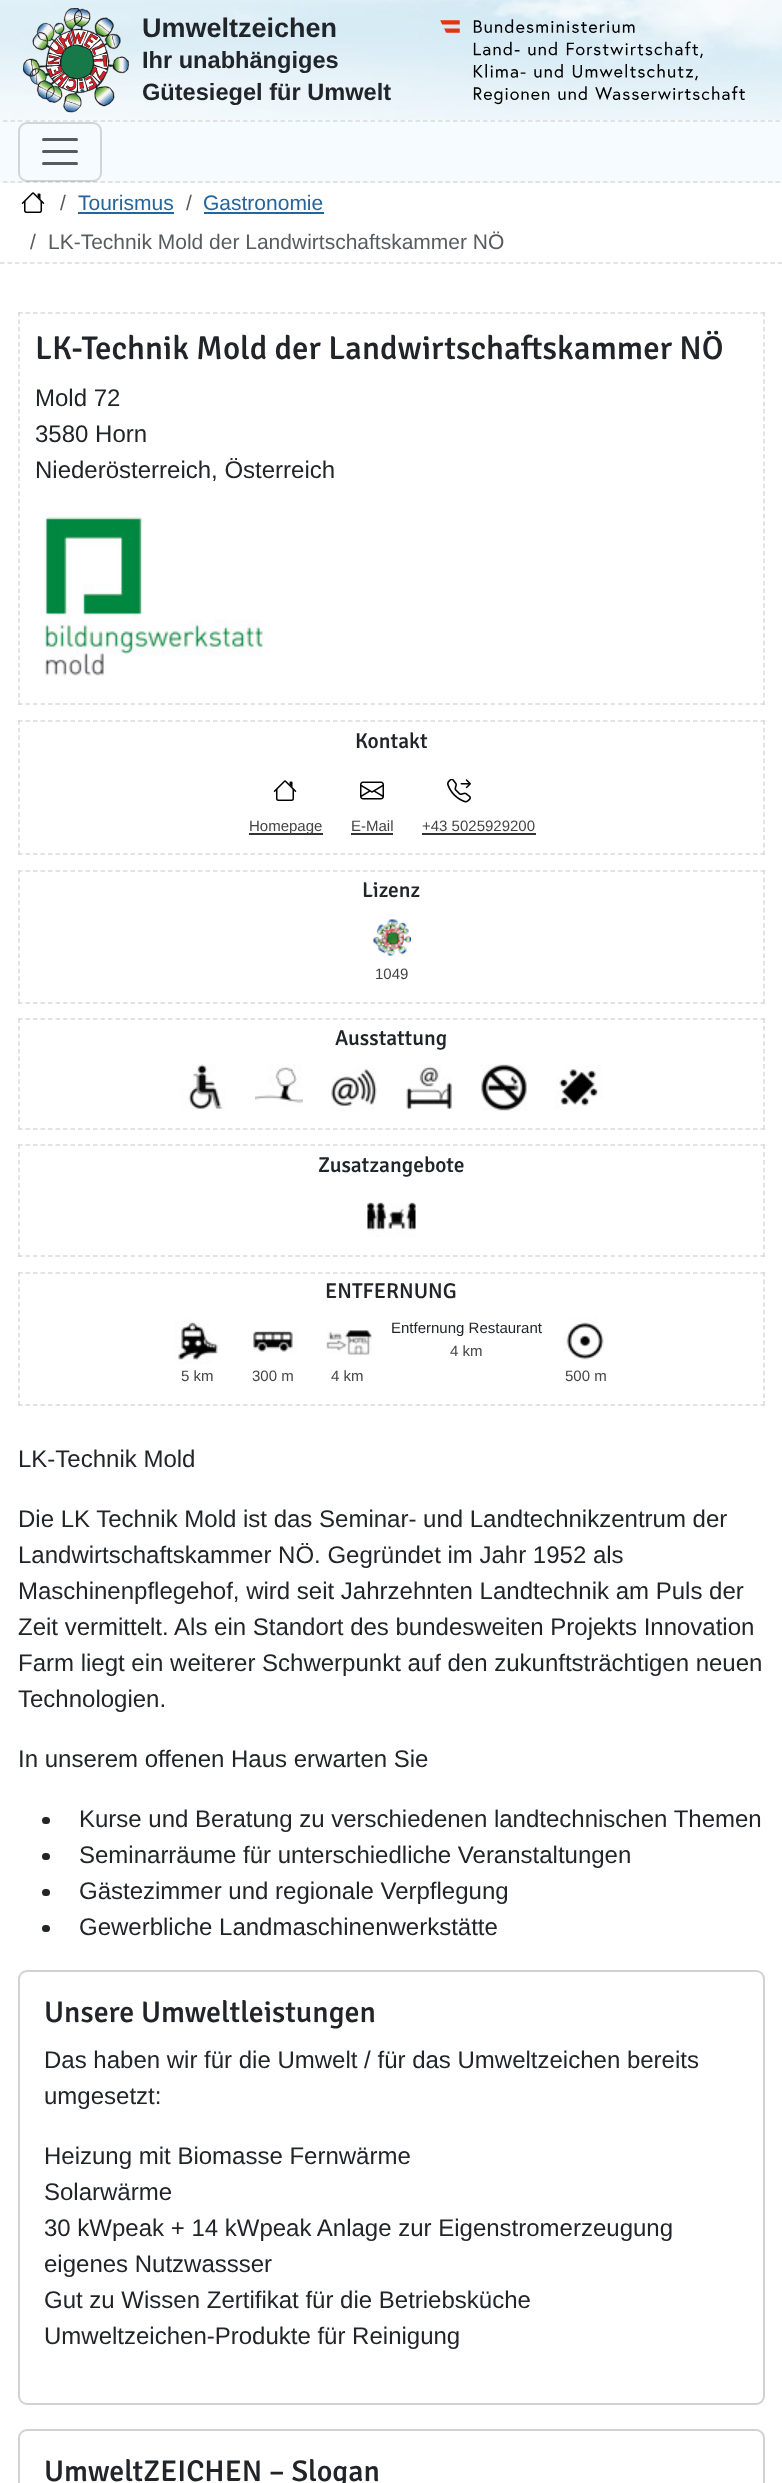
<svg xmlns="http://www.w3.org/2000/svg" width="782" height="2483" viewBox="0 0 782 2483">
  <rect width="100%" height="100%" fill="#fff"/>
  <image x="0" y="0" width="782" height="120" href="img/1.png"/>
  <image x="23" y="8" width="106" height="105" href="img/2.png"/>
  <image x="440" y="19" width="305" height="86" href="img/3.png"/>
  <path d="M0 120h782v63H0z" fill="#f5fbff"/>
  <path d="M-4.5 121H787.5" fill="none" stroke="#dadada" stroke-width="1.5" stroke-dasharray="4.5 3"/>
  <path d="M-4.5 182H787.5" fill="none" stroke="#dadada" stroke-width="1.5" stroke-dasharray="4.5 3"/>
  <rect x="19" y="123" width="82" height="58" rx="8" fill="none" stroke="#00000026" stroke-width="2"/>
  <path d="M43.5 139.5H76.5M43.5 151.5H76.5M43.5 163.5H76.5" fill="none" stroke="#565b5f" stroke-width="3" stroke-linecap="round"/>
  <path d="M0 263H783" fill="none" stroke="#dadada" stroke-width="1.5" stroke-dasharray="4.5 2.98"/>
  <image x="21" y="192" width="24" height="21" href="img/4.png"/>
  <path d="M78 212h96v2H78z" fill="#24659d"/>
  <path d="M204 212h120v2H204z" fill="#24659d"/>
  <path d="M18 313H765" fill="none" stroke="#dadada" stroke-width="1.5" stroke-dasharray="4.5 3"/>
  <path d="M764 312V705" fill="none" stroke="#dadada" stroke-width="1.5" stroke-dasharray="4.5 2.97"/>
  <path d="M18 704H765" fill="none" stroke="#dadada" stroke-width="1.5" stroke-dasharray="4.5 3"/>
  <path d="M19 312V705" fill="none" stroke="#dadada" stroke-width="1.5" stroke-dasharray="4.5 2.97"/>
  <image x="44" y="511" width="219" height="165" href="img/5.png"/>
  <path d="M18 721H765" fill="none" stroke="#dadada" stroke-width="1.5" stroke-dasharray="4.5 3"/>
  <path d="M764 720V855" fill="none" stroke="#dadada" stroke-width="1.5" stroke-dasharray="4.5 3.18"/>
  <path d="M18 854H765" fill="none" stroke="#dadada" stroke-width="1.5" stroke-dasharray="4.5 3"/>
  <path d="M19 720V855" fill="none" stroke="#dadada" stroke-width="1.5" stroke-dasharray="4.5 3.18"/>
  <image x="273" y="780" width="24" height="21" href="img/4.png"/>
  <path d="M249 833h74v2H249z" fill="#333"/>
  <image x="360" y="781" width="24" height="19" href="img/6.png"/>
  <path d="M351 833h42v2H351z" fill="#333"/>
  <image x="447" y="779" width="24" height="24" href="img/7.png"/>
  <path d="M422 833h114v2H422z" fill="#333"/>
  <path d="M18 871H765" fill="none" stroke="#dadada" stroke-width="1.5" stroke-dasharray="4.5 3"/>
  <path d="M764 870V1003.5" fill="none" stroke="#dadada" stroke-width="1.5" stroke-dasharray="4.5 3.09"/>
  <path d="M18 1003H765" fill="none" stroke="#dadada" stroke-width="1.5" stroke-dasharray="4.5 3"/>
  <path d="M19 870V1003.5" fill="none" stroke="#dadada" stroke-width="1.5" stroke-dasharray="4.5 3.09"/>
  <image x="373" y="919" width="38" height="37" href="img/8.png"/>
  <path d="M18 1019H765" fill="none" stroke="#dadada" stroke-width="1.5" stroke-dasharray="4.5 3"/>
  <path d="M764 1018.5V1129.5" fill="none" stroke="#dadada" stroke-width="1.5" stroke-dasharray="4.5 3.1"/>
  <path d="M18 1129H765" fill="none" stroke="#dadada" stroke-width="1.5" stroke-dasharray="4.5 3"/>
  <path d="M19 1018.5V1129.5" fill="none" stroke="#dadada" stroke-width="1.5" stroke-dasharray="4.5 3.1"/>
  <image x="180" y="1064" width="46" height="45" href="img/9.png"/>
  <image x="255" y="1064" width="48" height="43" href="img/10.png"/>
  <image x="331" y="1067" width="46" height="44" href="img/11.png"/>
  <image x="406" y="1064" width="47" height="46" href="img/12.png"/>
  <image x="480" y="1064" width="47" height="47" href="img/13.png"/>
  <image x="555" y="1065" width="48" height="45" href="img/14.png"/>
  <path d="M18 1145H765" fill="none" stroke="#dadada" stroke-width="1.5" stroke-dasharray="4.5 3"/>
  <path d="M764 1144.5V1257" fill="none" stroke="#dadada" stroke-width="1.5" stroke-dasharray="4.5 3.21"/>
  <path d="M18 1256H765" fill="none" stroke="#dadada" stroke-width="1.5" stroke-dasharray="4.5 3"/>
  <path d="M19 1144.5V1257" fill="none" stroke="#dadada" stroke-width="1.5" stroke-dasharray="4.5 3.21"/>
  <image x="367" y="1202" width="49" height="35" href="img/15.png"/>
  <path d="M18 1273H765" fill="none" stroke="#dadada" stroke-width="1.5" stroke-dasharray="4.5 3"/>
  <path d="M764 1272V1405.5" fill="none" stroke="#dadada" stroke-width="1.5" stroke-dasharray="4.5 3.09"/>
  <path d="M18 1405H765" fill="none" stroke="#dadada" stroke-width="1.5" stroke-dasharray="4.5 3"/>
  <path d="M19 1272V1405.5" fill="none" stroke="#dadada" stroke-width="1.5" stroke-dasharray="4.5 3.09"/>
  <image x="174" y="1319" width="46" height="46" href="img/16.png"/>
  <image x="252" y="1330" width="45" height="23" href="img/17.png"/>
  <image x="326" y="1330" width="46" height="27" href="img/18.png"/>
  <image x="563" y="1317" width="41" height="43" href="img/19.png"/>
  <rect x="42" y="1817" width="8" height="7" rx="3.5" fill="#212529"/>
  <rect x="42" y="1853" width="8" height="7" rx="3.5" fill="#212529"/>
  <rect x="42" y="1889" width="8" height="7" rx="3.5" fill="#212529"/>
  <rect x="42" y="1925" width="8" height="7" rx="3.5" fill="#212529"/>
  <rect x="19" y="1971" width="745" height="433" rx="8" fill="none" stroke="#d2d2d2" stroke-width="2"/>
  <rect x="19" y="2430" width="745" height="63" rx="8" fill="none" stroke="#d2d2d2" stroke-width="2"/>
  <text x="142" y="37" font-family="Liberation Sans" font-size="27" font-weight="bold" fill="#212529">Umweltzeichen</text>
  <g font-family="Liberation Sans" font-size="23.6" font-weight="bold" fill="#212529">
    <text x="142" y="68">Ihr unabhängiges</text>
    <text x="142" y="100">Gütesiegel für Umwelt</text>
  </g>
  <text x="60" y="210" font-family="Liberation Sans" font-size="21" fill="#595c5f">/</text>
  <text x="78" y="210" font-family="Liberation Sans" font-size="21" fill="#24659d">Tourismus</text>
  <text x="186" y="210" font-family="Liberation Sans" font-size="21" fill="#595c5f">/</text>
  <text x="203" y="210" font-family="Liberation Sans" font-size="21" fill="#24659d">Gastronomie</text>
  <g font-family="Liberation Sans" font-size="21" fill="#595c5f">
    <text x="30" y="249">/</text>
    <text x="48" y="249">LK-Technik Mold der Landwirtschaftskammer NÖ</text>
  </g>
  <text x="35" y="359" font-family="Signika" font-size="33" font-weight="500" fill="#212529">LK-Technik Mold der Landwirtschaftskammer NÖ</text>
  <g font-family="Liberation Sans" font-size="24" fill="#212529">
    <text x="35" y="406">Mold 72</text>
    <text x="35" y="442">3580 Horn</text>
    <text x="35" y="478">Niederösterreich, Österreich</text>
  </g>
  <text x="355" y="748" font-family="Signika" font-size="21.5" font-weight="500" fill="#212529">Kontakt</text>
  <g font-family="Liberation Sans" font-size="15" fill="#444">
    <text x="249" y="831">Homepage</text>
    <text x="351" y="831">E-Mail</text>
    <text x="422" y="831">+43 5025929200</text>
  </g>
  <text x="362" y="897" font-family="Signika" font-size="21.5" font-weight="500" fill="#212529">Lizenz</text>
  <text x="375" y="979" font-family="Liberation Sans" font-size="15" fill="#444">1049</text>
  <g font-family="Signika" font-size="21.5" font-weight="500" fill="#212529">
    <text x="335" y="1045">Ausstattung</text>
    <text x="318" y="1172">Zusatzangebote</text>
    <text x="325" y="1298">ENTFERNUNG</text>
  </g>
  <text x="391" y="1333" font-family="Liberation Sans" font-size="15" fill="#212529">Entfernung Restaurant</text>
  <g font-family="Liberation Sans" font-size="15" fill="#444">
    <text x="450" y="1356">4 km</text>
    <text x="181" y="1381">5 km</text>
    <text x="252" y="1381">300 m</text>
    <text x="331" y="1381">4 km</text>
    <text x="565" y="1381">500 m</text>
  </g>
  <g font-family="Liberation Sans" font-size="24" fill="#212529">
    <text x="18" y="1467">LK-Technik Mold</text>
    <text x="18" y="1527">Die LK Technik Mold ist das Seminar- und Landtechnikzentrum der</text>
    <text x="18" y="1563">Landwirtschaftskammer NÖ. Gegründet im Jahr 1952 als</text>
    <text x="18" y="1599">Maschinenpflegehof, wird seit Jahrzehnten Landtechnik am Puls der</text>
    <text x="18" y="1635">Zeit vermittelt. Als ein Standort des bundesweiten Projekts Innovation</text>
    <text x="18" y="1671">Farm liegt ein weiterer Schwerpunkt auf den zukunftsträchtigen neuen</text>
    <text x="18" y="1707">Technologien.</text>
    <text x="18" y="1767">In unserem offenen Haus erwarten Sie</text>
    <text x="79" y="1827">Kurse und Beratung zu verschiedenen landtechnischen Themen</text>
    <text x="79" y="1863">Seminarräume für unterschiedliche Veranstaltungen</text>
    <text x="79" y="1899">Gästezimmer und regionale Verpflegung</text>
    <text x="79" y="1935">Gewerbliche Landmaschinenwerkstätte</text>
  </g>
  <text x="44" y="2022" font-family="Signika" font-size="30" font-weight="500" fill="#212529">Unsere Umweltleistungen</text>
  <g font-family="Liberation Sans" font-size="24" fill="#212529">
    <text x="44" y="2068">Das haben wir für die Umwelt / für das Umweltzeichen bereits</text>
    <text x="44" y="2104">umgesetzt:</text>
    <text x="44" y="2164">Heizung mit Biomasse Fernwärme</text>
    <text x="44" y="2200">Solarwärme</text>
    <text x="44" y="2236">30 kWpeak + 14 kWpeak Anlage zur Eigenstromerzeugung</text>
    <text x="44" y="2272">eigenes Nutzwassser</text>
    <text x="44" y="2308">Gut zu Wissen Zertifikat für die Betriebsküche</text>
    <text x="44" y="2344">Umweltzeichen-Produkte für Reinigung</text>
  </g>
  <text x="44" y="2481" font-family="Signika" font-size="30" font-weight="500" fill="#212529">UmweltZEICHEN – Slogan</text>
</svg>
